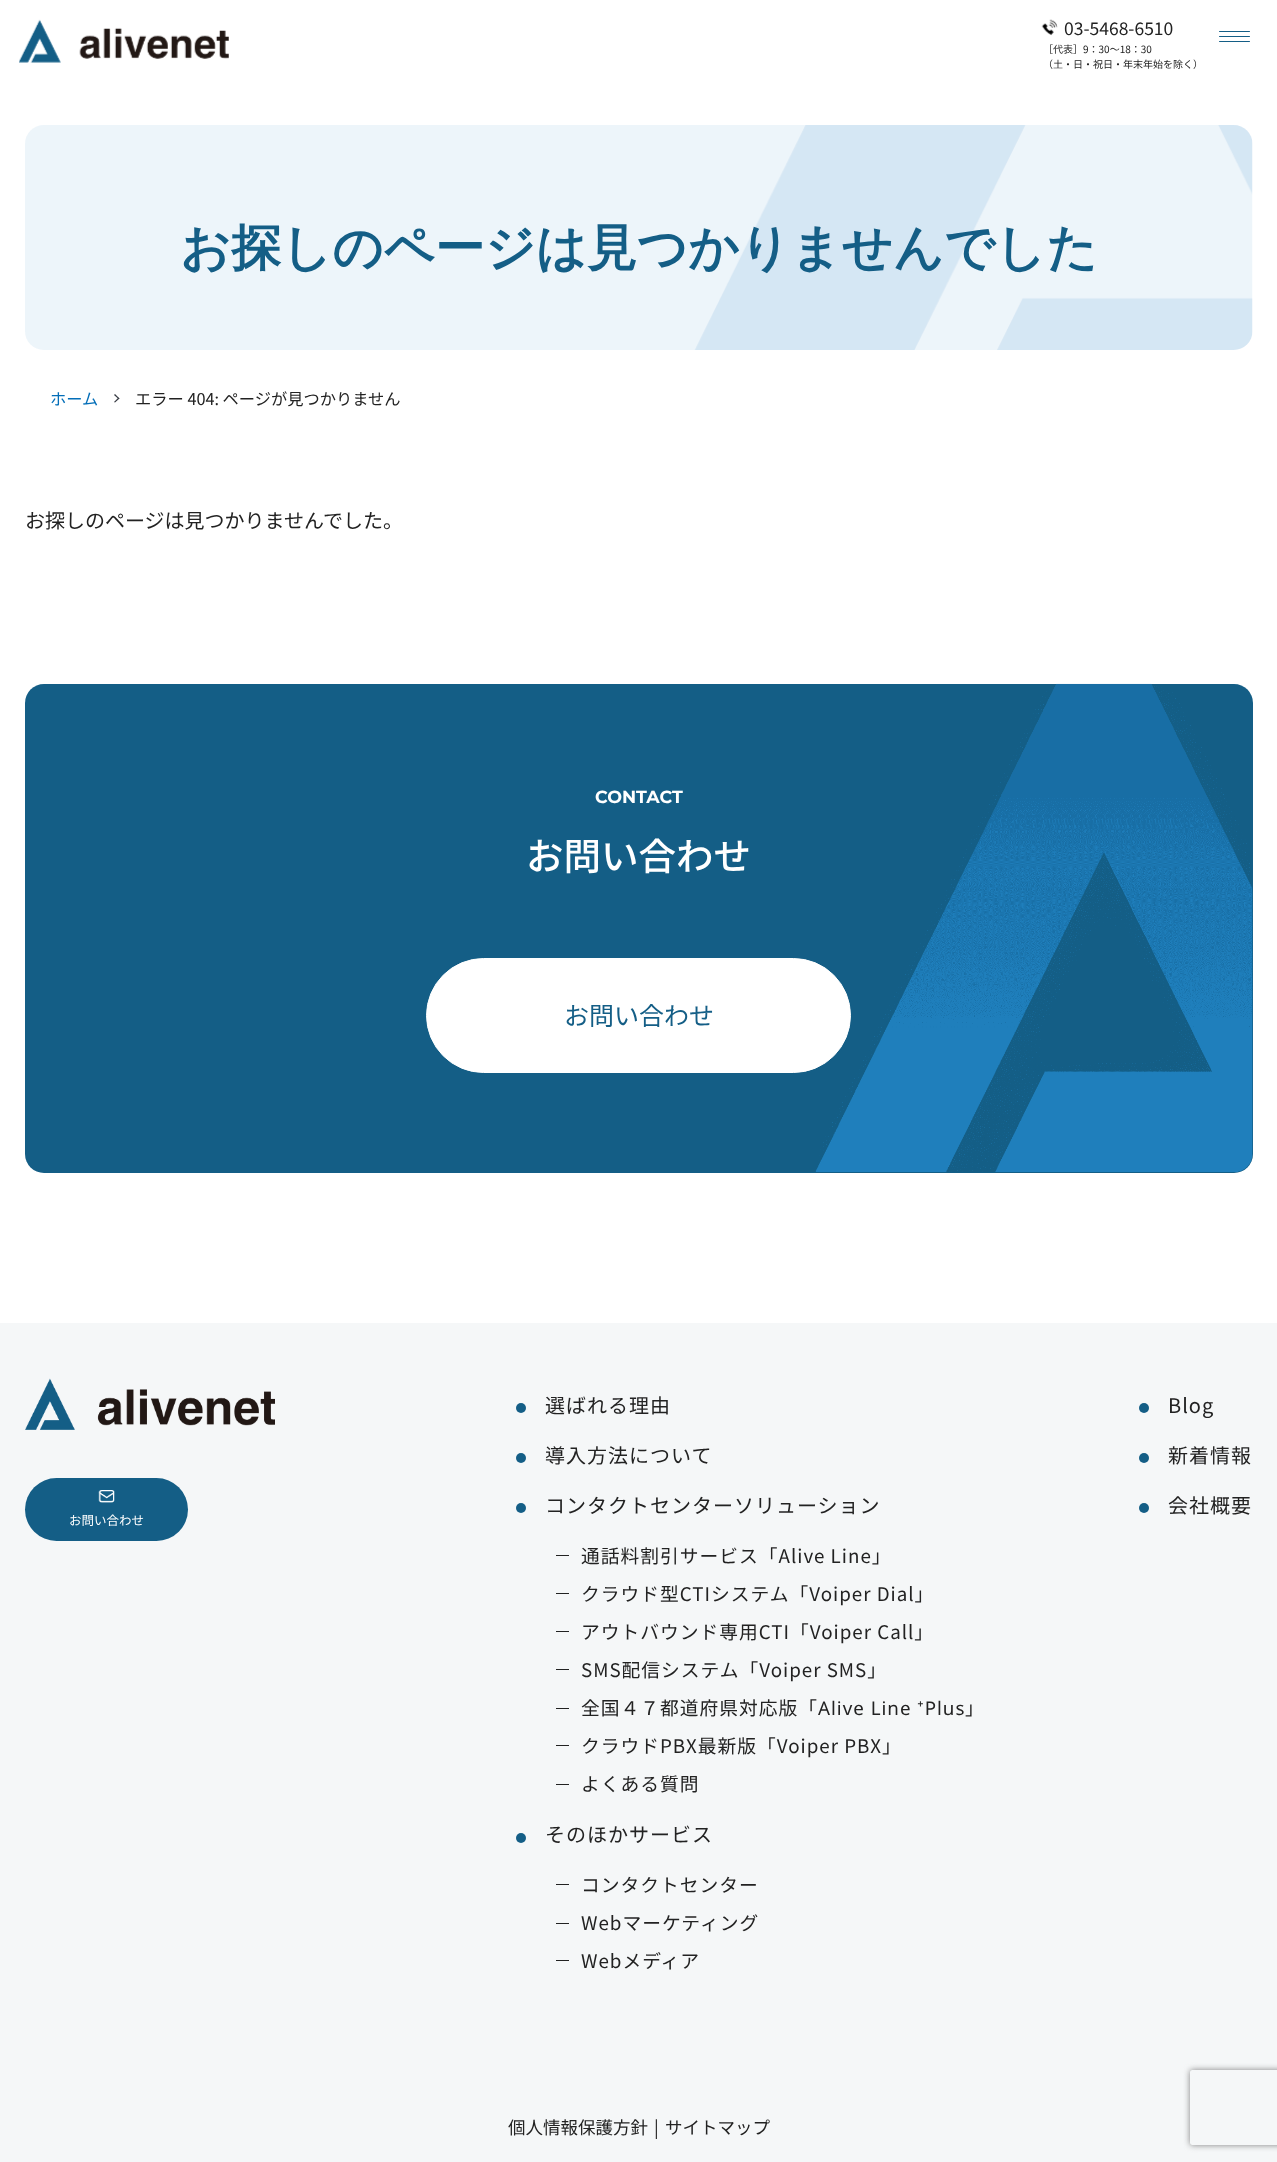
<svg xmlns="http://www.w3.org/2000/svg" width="1277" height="2162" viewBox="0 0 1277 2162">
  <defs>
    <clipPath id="clip1"><path d="M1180 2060H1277V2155H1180ZM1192.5 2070H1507.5C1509 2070 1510 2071 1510 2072.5V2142.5C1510 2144 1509 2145 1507.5 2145H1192.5C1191 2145 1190 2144 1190 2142.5V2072.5C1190 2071 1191 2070 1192.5 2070Z" clip-rule="evenodd"/></clipPath>
  </defs>
  <rect width="100%" height="100%" fill="#fff"/>
  <image x="19" y="19" width="210" height="44" href="img/1.png"/>
  <image x="1041" y="19" width="17" height="17" href="img/2.png"/>
  <rect x="1219" y="36" width="31" height="1" rx="0.5" fill="#145e86"/>
  <rect x="1219" y="31" width="31" height="1" rx="0.5" fill="#145e86"/>
  <rect x="1219" y="41" width="31" height="1" rx="0.5" fill="#145e86"/>
  <image x="25" y="125" width="1228" height="225" href="img/3.png"/>
  <path d="M115 394L119.5 398.5L118.5 399L114 395Z" fill="#353941"/>
  <path d="M118.5 397.5L119.5 398.5L115 402.5L114 402Z" fill="#353941"/>
  <rect x="25" y="684" width="1228" height="489" rx="19" fill="#145e86"/>
  <image x="815" y="683" width="438" height="489" href="img/4.png"/>
  <rect x="426.5" y="958.5" width="424" height="114" rx="57" fill="#fff" stroke="#fff"/>
  <path d="M0 1323h1277v839H0z" fill="#f5f7f8"/>
  <image x="25" y="1378" width="250" height="52" href="img/5.png"/>
  <rect x="25" y="1478" width="163" height="63" rx="31.5" fill="#145e86"/>
  <image x="98" y="1490" width="17" height="13" href="img/6.png"/>
  <circle cx="521" cy="1408" r="5" fill="#145e86"/>
  <circle cx="521" cy="1458" r="5" fill="#145e86"/>
  <circle cx="521" cy="1508" r="5" fill="#145e86"/>
  <path d="M556 1555h13v1H556z" fill="#222"/>
  <path d="M556 1593h13v1H556z" fill="#222"/>
  <path d="M556 1631h13v1H556z" fill="#222"/>
  <path d="M556 1669h13v1H556z" fill="#222"/>
  <path d="M556 1708h13v1H556z" fill="#222"/>
  <path d="M556 1745h13v1H556z" fill="#222"/>
  <path d="M556 1784h13v1H556z" fill="#222"/>
  <circle cx="521" cy="1838" r="5" fill="#145e86"/>
  <path d="M556 1884h13v1H556z" fill="#222"/>
  <path d="M556 1923h13v1H556z" fill="#222"/>
  <path d="M556 1960h13v1H556z" fill="#222"/>
  <circle cx="1144" cy="1408" r="5" fill="#145e86"/>
  <circle cx="1144" cy="1458" r="5" fill="#145e86"/>
  <circle cx="1144" cy="1508" r="5" fill="#145e86"/>
  <g clip-path="url(#clip1)">
    <rect x="1190" y="2070" width="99" height="75" rx="2.5" fill="#808080" filter="blur(3px)"/>
  </g>
  <text x="1064" y="35" font-family="Noto Sans JP" font-size="17.5" fill="#222">03-5468-6510</text>
  <g font-family="Noto Sans JP" font-size="10" fill="#222">
    <text x="1043" y="53">［代表］9：30～18：30</text>
    <text x="1043" y="68">（土・日・祝日・年末年始を除く）</text>
  </g>
  <text x="180" y="265" font-family="WenQuanYi Zen Hei" font-size="50" font-weight="bold" fill="#145e86">お探しのページは見つかりませんでした</text>
  <text x="50" y="405" font-family="Noto Sans JP" font-size="16.25" fill="#036eb8">ホーム</text>
  <text x="135" y="405" font-family="Noto Sans JP" font-size="16.25" fill="#222">エラー 404: ページが見つかりません</text>
  <text x="25" y="528" font-family="Noto Sans JP" font-size="20" fill="#222">お探しのページは見つかりませんでした。</text>
  <text x="595" y="803" font-family="Montserrat" font-size="17.5" font-weight="bold" fill="#fff">CONTACT</text>
  <text x="526" y="870" font-family="Noto Sans JP" font-size="37.5" font-weight="500" fill="#fff">お問い合わせ</text>
  <text x="564" y="1025" font-family="Noto Sans JP" font-size="25" fill="#145e86">お問い合わせ</text>
  <text x="69" y="1525" font-family="Noto Sans JP" font-size="12.5" fill="#fff">お問い合わせ</text>
  <g font-family="Noto Sans JP" font-size="20" letter-spacing="1" fill="#222">
    <text x="545" y="1413">選ばれる理由</text>
    <text x="545" y="1463">導入方法について</text>
    <text x="545" y="1513">コンタクトセンターソリューション</text>
  </g>
  <g font-family="Noto Sans JP" font-size="18.75" letter-spacing="1" fill="#222">
    <text x="581" y="1563">通話料割引サービス「Alive Line」</text>
    <text x="581" y="1601">クラウド型CTIシステム「Voiper Dial」</text>
    <text x="581" y="1639">アウトバウンド専用CTI「Voiper Call」</text>
    <text x="581" y="1677">SMS配信システム「Voiper SMS」</text>
    <text x="581" y="1715">全国４７都道府県対応版「</text>
  </g>
  <text x="818" y="1715" font-family="Noto Sans" font-size="18.75" letter-spacing="1" fill="#222">Alive Line ⁺Plus</text>
  <g font-family="Noto Sans JP" font-size="18.75" letter-spacing="1" fill="#222">
    <text x="965" y="1715">」</text>
    <text x="581" y="1753">クラウドPBX最新版「Voiper PBX」</text>
    <text x="581" y="1791">よくある質問</text>
  </g>
  <text x="545" y="1842" font-family="Noto Sans JP" font-size="20" letter-spacing="1" fill="#222">そのほかサービス</text>
  <g font-family="Noto Sans JP" font-size="18.75" letter-spacing="1" fill="#222">
    <text x="581" y="1892">コンタクトセンター</text>
    <text x="581" y="1930">Webマーケティング</text>
    <text x="581" y="1968">Webメディア</text>
  </g>
  <g font-family="Noto Sans JP" font-size="20" letter-spacing="1" fill="#222">
    <text x="1168" y="1413">Blog</text>
    <text x="1168" y="1463">新着情報</text>
    <text x="1168" y="1513">会社概要</text>
  </g>
  <g font-family="Noto Sans JP" font-size="17.5" fill="#222">
    <text x="508" y="2134">個人情報保護方針</text>
    <text x="654" y="2134">|</text>
    <text x="665" y="2134">サイトマップ</text>
  </g>
</svg>
